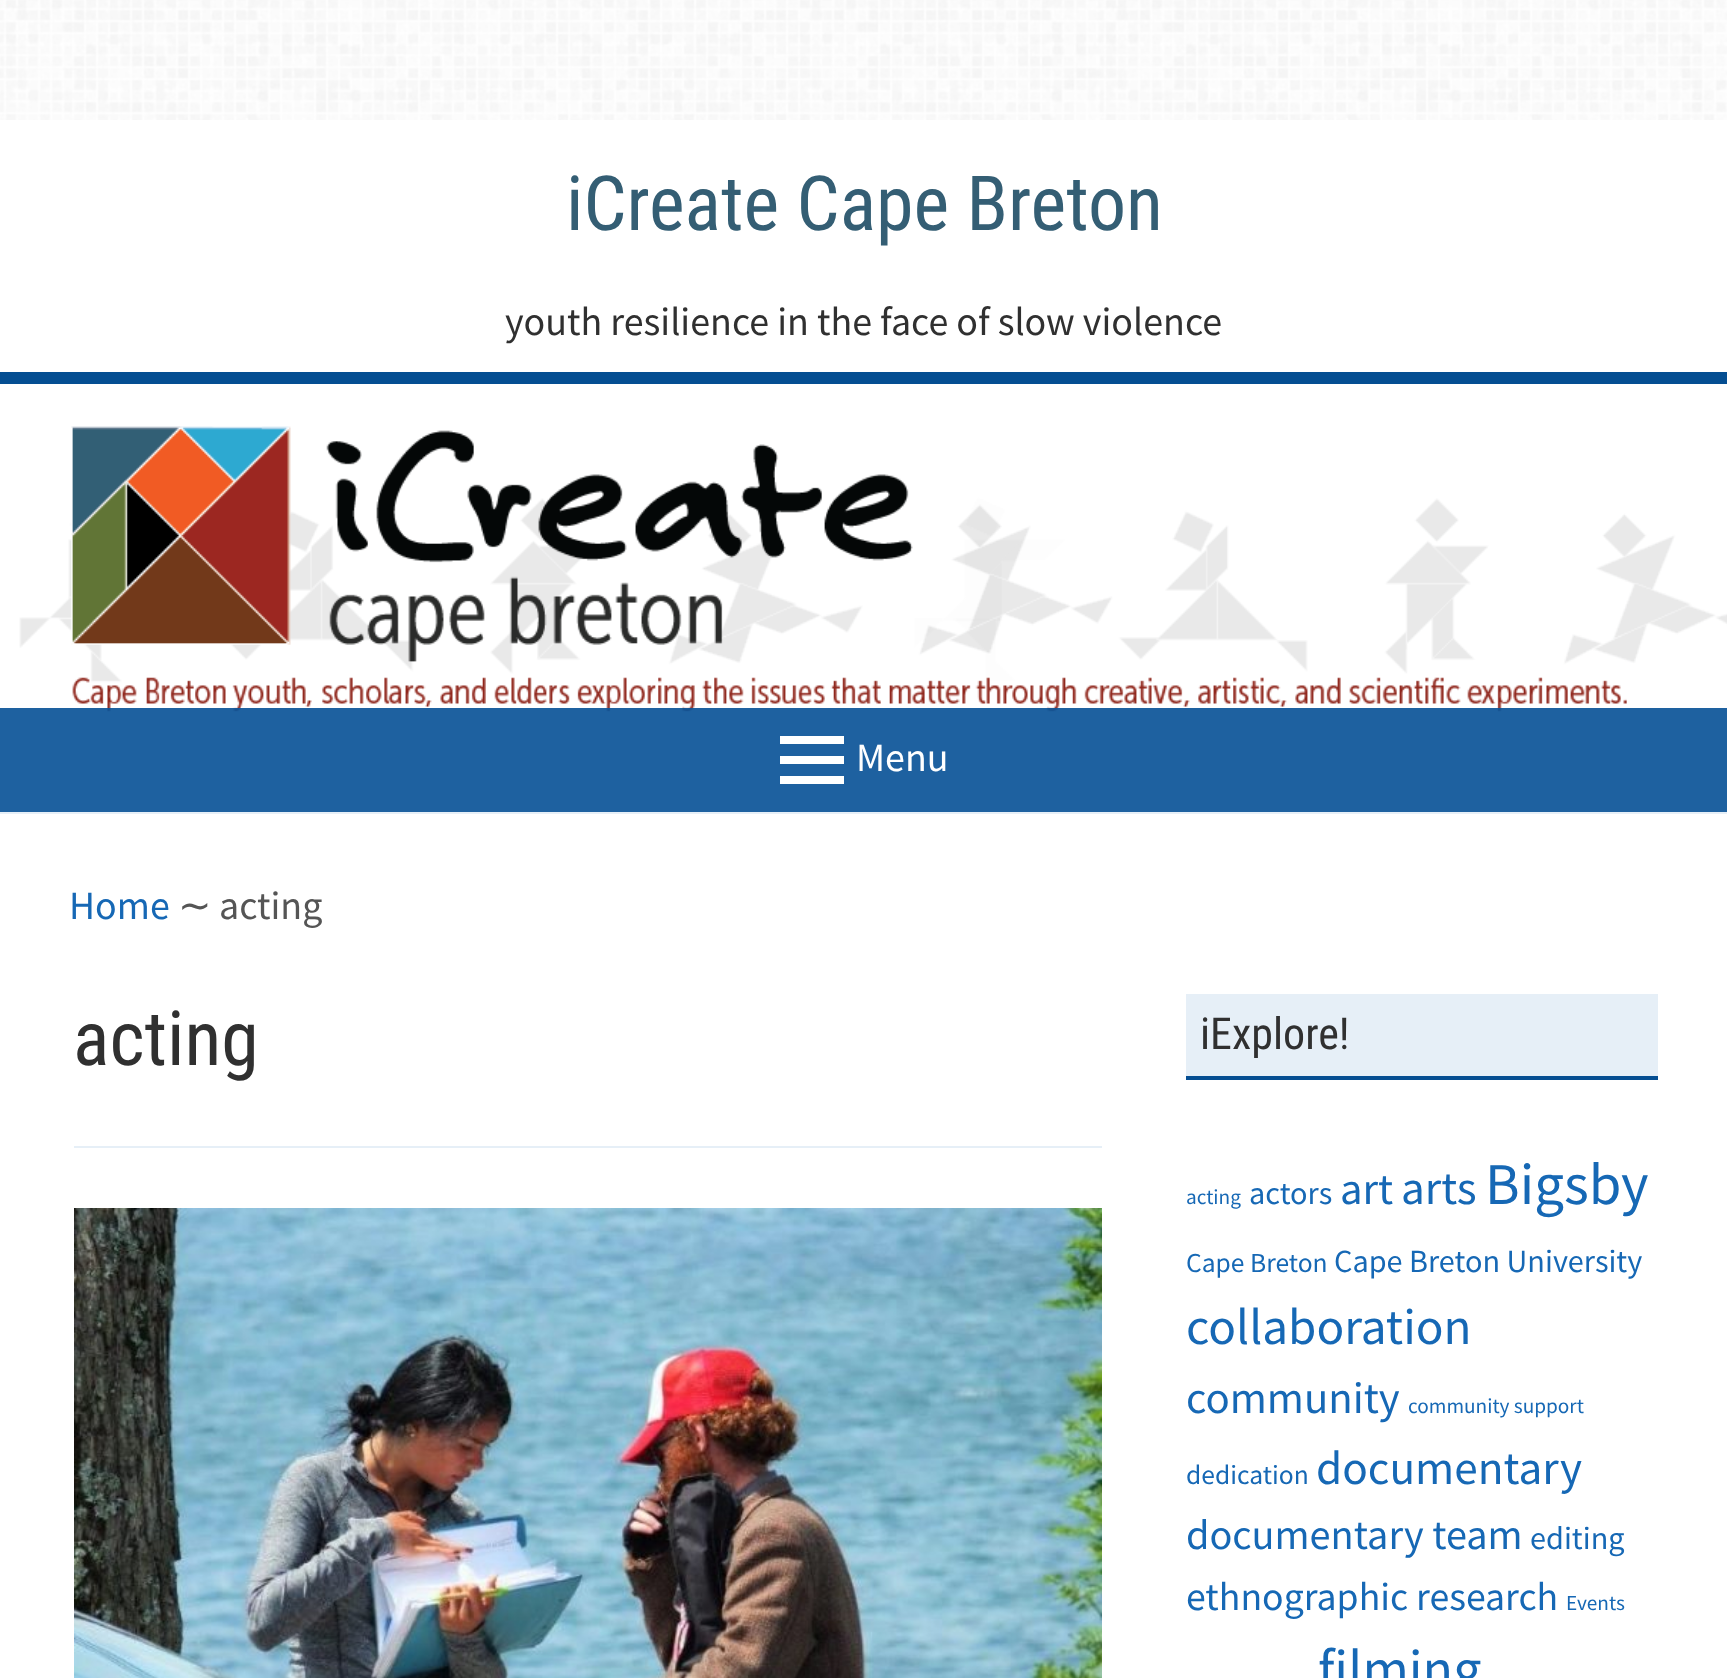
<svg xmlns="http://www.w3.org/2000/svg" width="1727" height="1678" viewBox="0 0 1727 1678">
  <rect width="100%" height="100%" fill="#fff"/>
  <image x="0" y="0" width="1727" height="812" href="img/1.png"/>
  <path d="M0 120h1727v252H0z" fill="#fff"/>
  <path d="M0 384h1727v324H0z" fill="#fff"/>
  <path d="M0 372h1727v12H0z" fill="#054e92"/>
  <image x="19" y="426" width="1708" height="286" href="img/2.png"/>
  <path d="M0 708h1727v104H0z" fill="#0b5498eb"/>
  <path d="M0 812h1727v2H0z" fill="#e6eff7"/>
  <path d="M780 784V776H844V784ZM780 736H844V744H780ZM780 764V756H844V764Z" fill="#fff"/>
  <path d="M74 1146h1028v2H74z" fill="#e6eff7"/>
  <image x="74" y="1208" width="1028" height="470" href="img/3.png"/>
  <path d="M1186 994h472v82H1186z" fill="#e6eff7"/>
  <path d="M1186 1076h472v4H1186z" fill="#054e92"/>
  <text x="566" y="230" font-family="Roboto Condensed" font-size="76" fill="#345e74">iCreate Cape Breton</text>
  <text x="505" y="335" font-family="Source Sans Pro" font-size="40" fill="#303030">youth resilience in the face of slow violence</text>
  <text x="856" y="771" font-family="Source Sans Pro" font-size="40" fill="#fff">Menu</text>
  <text x="69" y="919" font-family="Source Sans Pro" font-size="40" fill="#1668b5">Home</text>
  <text x="178" y="919" font-family="DejaVu Sans" font-size="40" fill="#555">∼</text>
  <text x="219" y="919" font-family="Source Sans Pro" font-size="40" fill="#555">acting</text>
  <text x="73" y="1065" font-family="Roboto Condensed" font-size="76" fill="#303030">acting</text>
  <text x="1200" y="1049" font-family="Roboto Condensed" font-size="44" fill="#303030">iExplore!</text>
  <text x="1186" y="1204" font-family="Source Sans Pro" font-size="21.25" fill="#1668b5">acting</text>
  <text x="1249" y="1204" font-family="Source Sans Pro" font-size="32.25" fill="#1668b5">actors</text>
  <text x="1340" y="1204" font-family="Source Sans Pro" font-size="44.75" fill="#1668b5">art</text>
  <text x="1401" y="1204" font-family="Source Sans Pro" font-size="47.25" fill="#1668b5">arts</text>
  <text x="1485" y="1204" font-family="Source Sans Pro" font-size="59" fill="#1668b5">Bigsby</text>
  <text x="1186" y="1272" font-family="Source Sans Pro" font-size="27.5" fill="#1668b5">Cape Breton</text>
  <text x="1334" y="1272" font-family="Source Sans Pro" font-size="32.25" fill="#1668b5">Cape Breton University</text>
  <text x="1186" y="1344" font-family="Source Sans Pro" font-size="51.25" fill="#1668b5">collaboration</text>
  <text x="1186" y="1413" font-family="Source Sans Pro" font-size="44.75" fill="#1668b5">community</text>
  <text x="1408" y="1413" font-family="Source Sans Pro" font-size="21.25" fill="#1668b5">community support</text>
  <text x="1186" y="1484" font-family="Source Sans Pro" font-size="27.5" fill="#1668b5">dedication</text>
  <text x="1316" y="1484" font-family="Source Sans Pro" font-size="47.25" fill="#1668b5">documentary</text>
  <text x="1186" y="1549" font-family="Source Sans Pro" font-size="42.25" fill="#1668b5">documentary team</text>
  <text x="1530" y="1549" font-family="Source Sans Pro" font-size="32.25" fill="#1668b5">editing</text>
  <text x="1186" y="1610" font-family="Source Sans Pro" font-size="39.75" fill="#1668b5">ethnographic research</text>
  <text x="1566" y="1610" font-family="Source Sans Pro" font-size="21.25" fill="#1668b5">Events</text>
  <text x="1318" y="1688" font-family="Source Sans Pro" font-size="56" fill="#1668b5">filming</text>
</svg>
